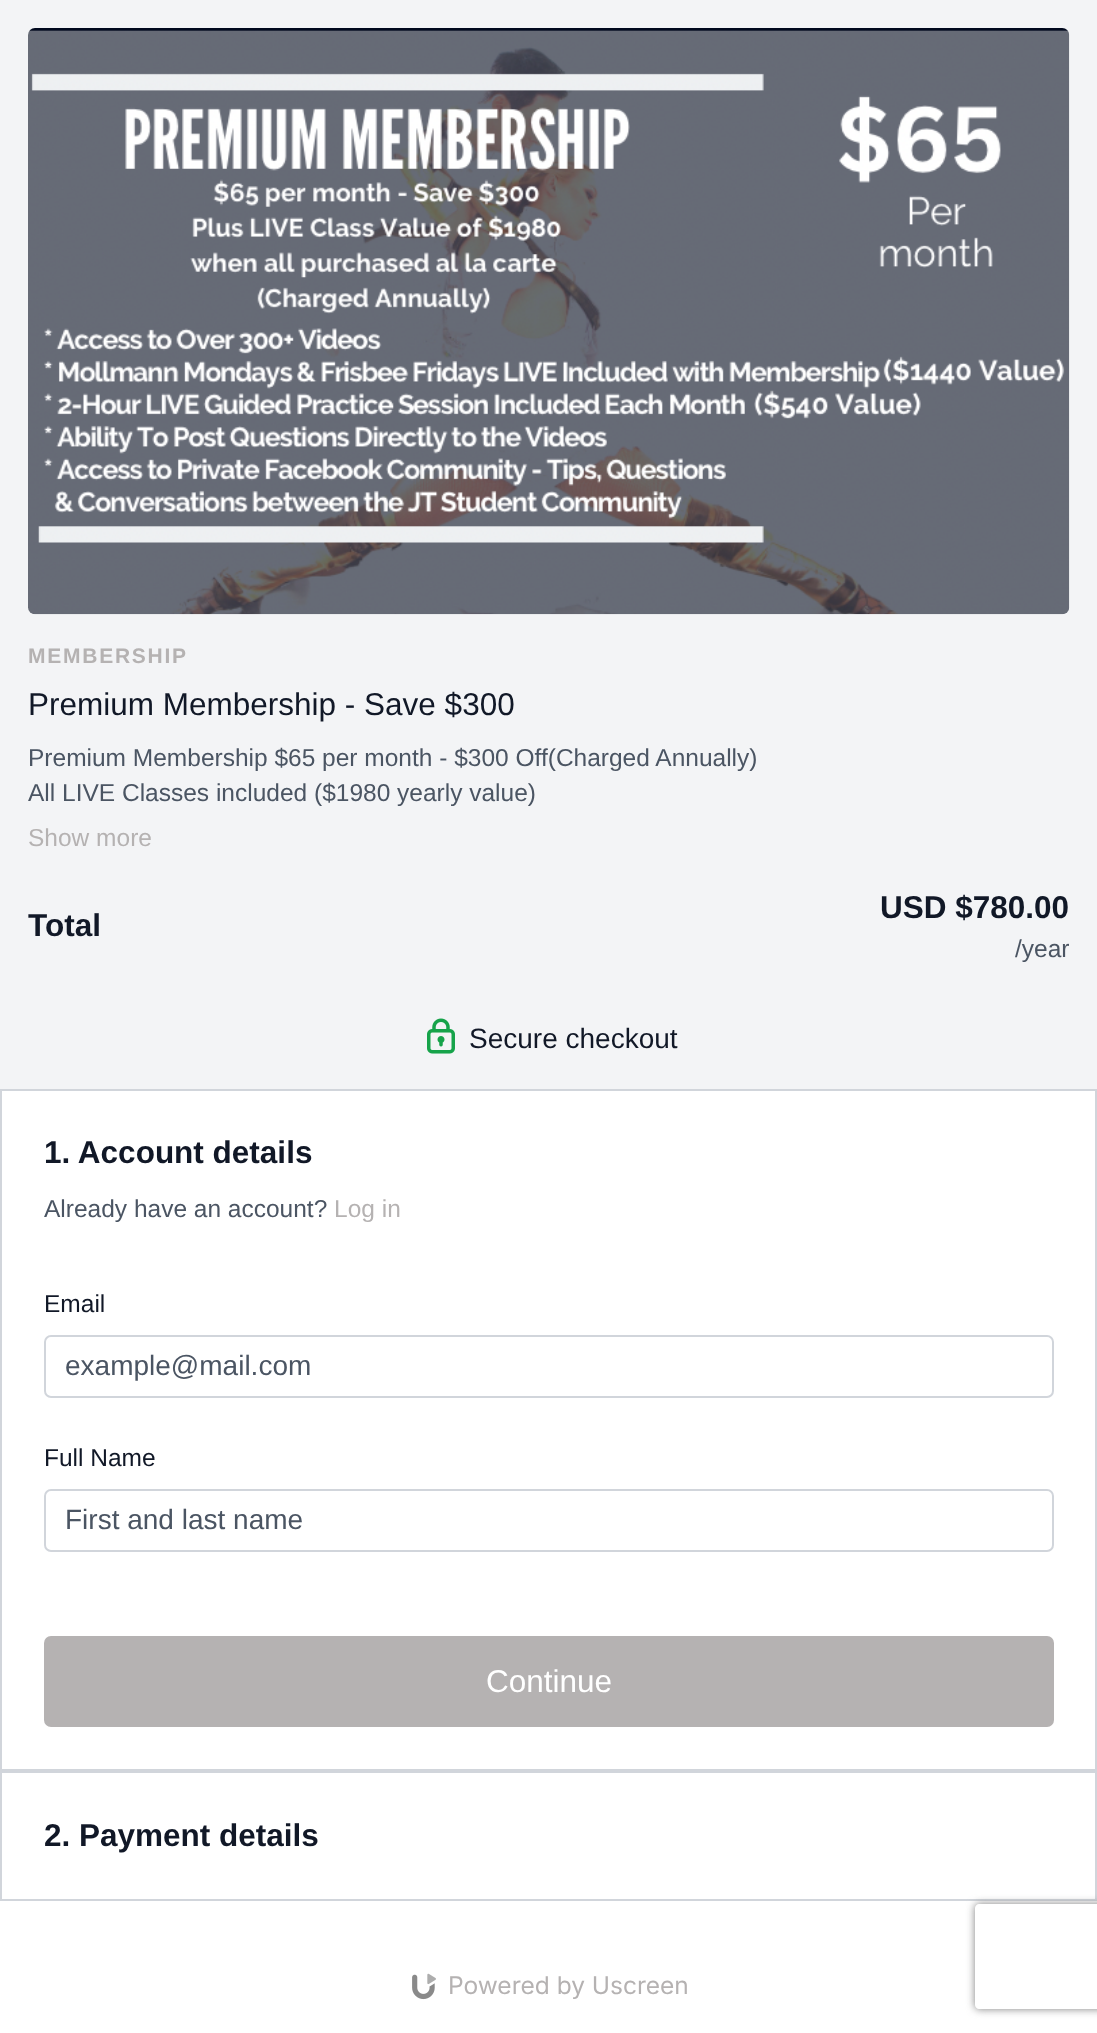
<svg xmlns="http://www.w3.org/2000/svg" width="1097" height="2033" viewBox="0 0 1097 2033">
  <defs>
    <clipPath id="clip1"><path d="M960 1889H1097V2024H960ZM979 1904H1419C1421 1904 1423 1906 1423 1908V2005C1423 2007 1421 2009 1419 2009H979C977 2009 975 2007 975 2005V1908C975 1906 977 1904 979 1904Z" clip-rule="evenodd"/></clipPath>
  </defs>
  <rect width="100%" height="100%" fill="#fff"/>
  <path d="M0 0h1097v1089H0z" fill="#f3f4f6"/>
  <image x="28" y="28" width="1042" height="587" href="img/1.png"/>
  <image x="427" y="1018" width="28" height="36" href="img/2.png"/>
  <path d="M1 1090h1095v680H1z" fill="none" stroke="#d1d5db" stroke-width="2"/>
  <rect x="45" y="1336" width="1008" height="61" rx="6" fill="none" stroke="#d1d5db" stroke-width="2"/>
  <rect x="45" y="1490" width="1008" height="61" rx="6" fill="none" stroke="#d1d5db" stroke-width="2"/>
  <rect x="44" y="1636" width="1010" height="91" rx="7" fill="#b5b2b2"/>
  <path d="M1 1772h1095v128H1z" fill="none" stroke="#d1d5db" stroke-width="2"/>
  <image x="412" y="1973" width="24" height="27" href="img/3.png"/>
  <g clip-path="url(#clip1)">
    <rect x="975" y="1904" width="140" height="105" rx="4" fill="#808080" filter="blur(4.5px)"/>
  </g>
  <text x="28" y="663" font-family="Liberation Sans" font-size="21" font-weight="bold" letter-spacing="1.75" fill="#b5b2b2">MEMBERSHIP</text>
  <text x="28" y="715" font-family="Liberation Sans" font-size="31.5" fill="#111827">Premium Membership - Save $300</text>
  <g font-family="Liberation Sans" font-size="24.5" fill="#4b5563">
    <text x="28" y="766">Premium Membership $65 per month - $300 Off(Charged Annually)</text>
    <text x="28" y="801">All LIVE Classes included ($1980 yearly value)</text>
  </g>
  <text x="28" y="846" font-family="Liberation Sans" font-size="24.5" fill="#b5b2b2">Show more</text>
  <g font-family="Liberation Sans" font-size="31.5" font-weight="bold" fill="#111827">
    <text x="28" y="936">Total</text>
    <text x="880" y="918">USD $780.00</text>
  </g>
  <text x="1015" y="957" font-family="Liberation Sans" font-size="24.5" fill="#4b5563">/year</text>
  <text x="469" y="1048" font-family="Liberation Sans" font-size="28" fill="#111827">Secure checkout</text>
  <text x="44" y="1163" font-family="Liberation Sans" font-size="31.5" font-weight="bold" fill="#111827">1. Account details</text>
  <text x="44" y="1217" font-family="Liberation Sans" font-size="24.5" fill="#4b5563">Already have an account?</text>
  <text x="334" y="1217" font-family="Liberation Sans" font-size="24.5" fill="#b5b2b2">Log in</text>
  <text x="44" y="1312" font-family="Liberation Sans" font-size="24.5" fill="#111827">Email</text>
  <text x="65" y="1375" font-family="Liberation Sans" font-size="28" fill="#4b5563">example@mail.com</text>
  <text x="44" y="1466" font-family="Liberation Sans" font-size="24.5" fill="#111827">Full Name</text>
  <text x="65" y="1529" font-family="Liberation Sans" font-size="28" fill="#4b5563">First and last name</text>
  <text x="486" y="1692" font-family="Liberation Sans" font-size="31.5" fill="#fff">Continue</text>
  <text x="44" y="1846" font-family="Liberation Sans" font-size="31.5" font-weight="bold" fill="#111827">2. Payment details</text>
  <text x="448" y="1994" font-family="Inter" font-size="24.5" fill="#b5b2b2">Powered by Uscreen</text>
</svg>
